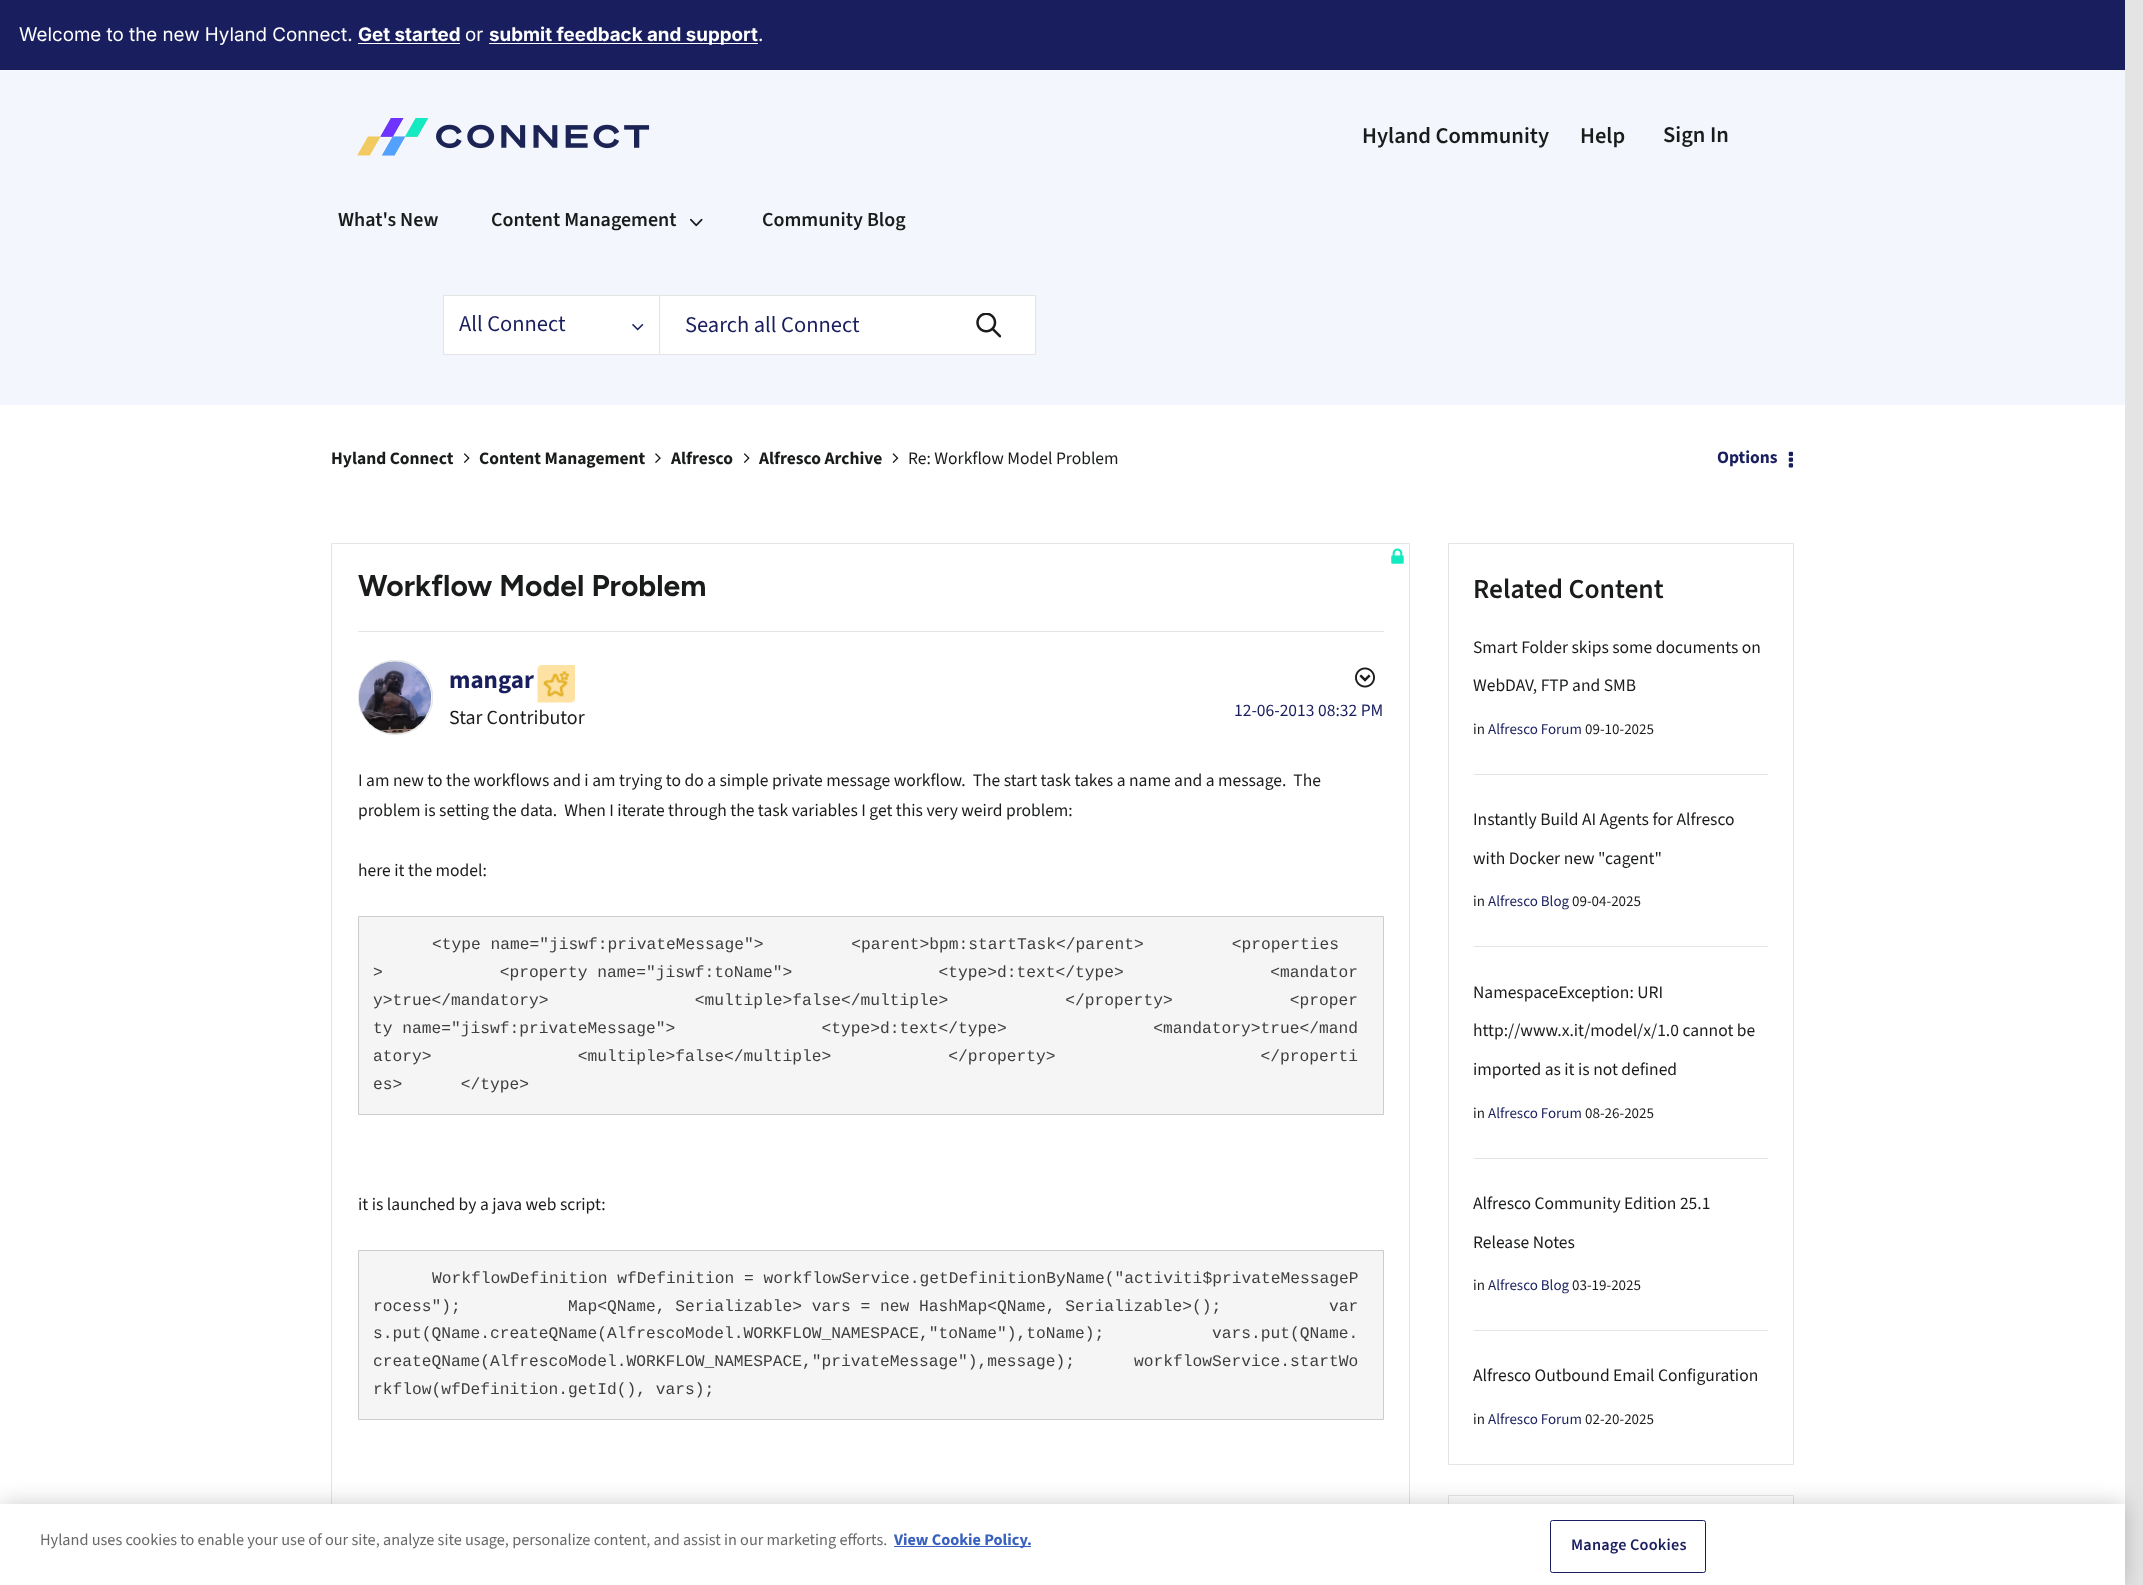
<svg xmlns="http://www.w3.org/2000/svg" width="2143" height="1585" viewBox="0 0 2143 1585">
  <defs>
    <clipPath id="clip1"><path d="M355 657H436V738H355ZM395.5 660C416 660 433 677 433 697.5C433 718 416 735 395.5 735C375 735 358 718 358 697.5C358 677 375 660 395.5 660Z" clip-rule="evenodd"/></clipPath>
  </defs>
  <rect width="100%" height="100%" fill="#e4e4e4"/>
  <path d="M0 405h2125v1099H0z" fill="#fff"/>
  <path d="M0 0h2125v70H0z" fill="#191f5e"/>
  <path d="M358 43h102v1H358z" fill="#fff"/>
  <path d="M489 43h269v1H489z" fill="#fff"/>
  <path d="M0 70h2125v335H0z" fill="#f4f6fe"/>
  <image x="357" y="118" width="293" height="38" href="img/1.png"/>
  <image x="690" y="218" width="13" height="9" href="img/2.png"/>
  <path d="M444 296h215v58H444z" fill="#fff"/>
  <path d="M443 295h216v1H443z" fill="#e4e4e4"/>
  <path d="M443 354h216v1H443z" fill="#e4e4e4"/>
  <path d="M443 295h1v60H443z" fill="#e4e4e4"/>
  <image x="632" y="323" width="12" height="8" href="img/3.png"/>
  <path d="M659.5 295.5h376v59H659.5z" fill="#fff" stroke="#e4e4e4"/>
  <image x="976" y="313" width="25" height="25" href="img/4.png"/>
  <image x="463" y="453" width="7" height="10" href="img/5.png"/>
  <image x="655" y="453" width="6" height="10" href="img/6.png"/>
  <image x="743" y="453" width="7" height="10" href="img/5.png"/>
  <image x="892" y="453" width="7" height="10" href="img/7.png"/>
  <image x="1788" y="451" width="6" height="17" href="img/8.png"/>
  <path d="M331.5 543.5h1078v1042H331.5z" fill="none" stroke="#e4e4e4"/>
  <image x="1391" y="548" width="13" height="16" href="img/9.png"/>
  <path d="M358 631h1026v1H358z" fill="#e4e4e4"/>
  <g clip-path="url(#clip1)">
    <rect x="358" y="660" width="75" height="75" rx="37.5" fill="#c4c4c4" filter="blur(0.5px)"/>
  </g>
  <circle cx="395.5" cy="697.5" r="37" fill="none" stroke="#e4e4e4"/>
  <image x="358" y="661" width="74" height="73" href="img/10.png"/>
  <image x="537" y="665" width="38" height="38" href="img/11.png"/>
  <image x="1355" y="667" width="20" height="21" href="img/12.png"/>
  <path d="M358.5 916.5h1025v198H358.5z" fill="#f5f5f5" stroke="#ccc"/>
  <path d="M358.5 1250.5h1025v169H358.5z" fill="#f5f5f5" stroke="#ccc"/>
  <path d="M1448.5 543.5h345v921H1448.5z" fill="none" stroke="#e4e4e4"/>
  <path d="M1474 774h294v1H1474z" fill="#e4e4e4"/>
  <path d="M1474 946h294v1H1474z" fill="#e4e4e4"/>
  <path d="M1474 1158h294v1H1474z" fill="#e4e4e4"/>
  <path d="M1474 1330h294v1H1474z" fill="#e4e4e4"/>
  <path d="M1448.5 1495.5h345v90H1448.5z" fill="none" stroke="#e4e4e4"/>
  <path d="M0 1504h2125v81H0z" fill="#00000033" filter="blur(11px)"/>
  <path d="M0 1504h2125v81H0z" fill="#fff"/>
  <path d="M894 1546h137v1H894z" fill="#3860be"/>
  <rect x="1550.5" y="1520.5" width="155" height="52" rx="2" fill="none" stroke="#191f5e"/>
  <text x="19" y="41" font-family="Inter" font-size="18.75" fill="#fff">Welcome to the new Hyland Connect.</text>
  <text x="358" y="41" font-family="Inter" font-size="18.75" font-weight="bold" fill="#fff">Get started</text>
  <text x="465" y="41" font-family="Inter" font-size="18.75" fill="#fff">or</text>
  <text x="489" y="41" font-family="Inter" font-size="18.75" font-weight="bold" fill="#fff">submit feedback and support</text>
  <text x="758" y="41" font-family="Inter" font-size="18.75" fill="#fff">.</text>
  <g font-family="'Source Sans 3'" font-size="22.5" font-weight="600" fill="#191c1a">
    <text x="1362" y="143">Hyland Community</text>
    <text x="1580" y="143">Help</text>
    <text x="1663" y="142">Sign In</text>
  </g>
  <g font-family="'Source Sans 3'" font-size="20" font-weight="600" fill="#191c1a">
    <text x="338" y="226">What's New</text>
    <text x="491" y="226">Content Management</text>
    <text x="762" y="226">Community Blog</text>
  </g>
  <g font-family="'Source Sans 3'" font-size="22.5" fill="#191f5e">
    <text x="459" y="331">All Connect</text>
    <text x="685" y="332">Search all Connect</text>
  </g>
  <g font-family="'Source Sans 3'" font-size="17.5" font-weight="bold" fill="#191c1a">
    <text x="331" y="464">Hyland Connect</text>
    <text x="479" y="464">Content Management</text>
    <text x="671" y="464">Alfresco</text>
    <text x="759" y="464">Alfresco Archive</text>
  </g>
  <text x="908" y="464" font-family="'Source Sans 3'" font-size="17.5" fill="#191c1a">Re: Workflow Model Problem</text>
  <text x="1717" y="463" font-family="'Source Sans 3'" font-size="17.5" font-weight="bold" fill="#191f5e">Options</text>
  <text x="358" y="596" font-family="Figtree" font-size="30" font-weight="bold" fill="#191c1a">Workflow Model Problem</text>
  <text x="449" y="688" font-family="'Source Sans 3'" font-size="25" font-weight="bold" fill="#191f5e">mangar</text>
  <text x="449" y="724" font-family="'Source Sans 3'" font-size="20" fill="#191c1a">Star Contributor</text>
  <g font-family="'Source Sans 3'" font-size="17.5" fill="#191f5e">
    <text x="1234" y="716">12-06-2013</text>
    <text x="1318" y="716">08:32 PM</text>
  </g>
  <g font-family="'Source Sans 3'" font-size="17.5" fill="#191c1a">
    <text x="358" y="786" xml:space="preserve">I am new to the workflows and i am trying to do a simple private message workflow.  The start task takes a name and a message.  The</text>
    <text x="358" y="816" xml:space="preserve">problem is setting the data.  When I iterate through the task variables I get this very weird problem:</text>
    <text x="358" y="876">here it the model:</text>
  </g>
  <g font-family="Liberation Mono" font-size="16.25" fill="#3e3e3e">
    <text x="432" y="949" xml:space="preserve">&lt;type name="jiswf:privateMessage"&gt;         &lt;parent&gt;bpm:startTask&lt;/parent&gt;         &lt;properties</text>
    <text x="373" y="977" xml:space="preserve">&gt;            &lt;property name="jiswf:toName"&gt;               &lt;type&gt;d:text&lt;/type&gt;               &lt;mandator</text>
    <text x="373" y="1005" xml:space="preserve">y&gt;true&lt;/mandatory&gt;               &lt;multiple&gt;false&lt;/multiple&gt;            &lt;/property&gt;            &lt;proper</text>
    <text x="373" y="1033" xml:space="preserve">ty name="jiswf:privateMessage"&gt;               &lt;type&gt;d:text&lt;/type&gt;               &lt;mandatory&gt;true&lt;/mand</text>
    <text x="373" y="1061" xml:space="preserve">atory&gt;               &lt;multiple&gt;false&lt;/multiple&gt;            &lt;/property&gt;                     &lt;/properti</text>
    <text x="373" y="1089" xml:space="preserve">es&gt;      &lt;/type&gt;‍‍‍‍‍‍‍‍‍‍‍‍‍‍‍‍‍</text>
  </g>
  <text x="358" y="1210" font-family="'Source Sans 3'" font-size="17.5" fill="#191c1a">it is launched by a java web script:</text>
  <g font-family="Liberation Mono" font-size="16.25" fill="#3e3e3e">
    <text x="432" y="1283">WorkflowDefinition wfDefinition = workflowService.getDefinitionByName("activiti$privateMessageP</text>
    <text x="373" y="1311">rocess");</text>
    <text x="568" y="1311">Map&lt;QName, Serializable&gt; vars = new HashMap&lt;QName, Serializable&gt;();</text>
    <text x="1329" y="1311">var</text>
    <text x="373" y="1338">s.put(QName.createQName(AlfrescoModel.WORKFLOW_NAMESPACE,"toName"),toName);</text>
    <text x="1212" y="1338">vars.put(QName.</text>
    <text x="373" y="1366">createQName(AlfrescoModel.WORKFLOW_NAMESPACE,"privateMessage"),message);</text>
    <text x="1134" y="1366">workflowService.startWo</text>
    <text x="373" y="1394">rkflow(wfDefinition.getId(), vars);</text>
  </g>
  <text x="1473" y="598" font-family="'Source Sans 3'" font-size="27.5" font-weight="600" fill="#191c1a">Related Content</text>
  <g font-family="'Source Sans 3'" font-size="17.5" fill="#191c1a">
    <text x="1473" y="653">Smart Folder skips some documents on</text>
    <text x="1473" y="691">WebDAV, FTP and SMB</text>
  </g>
  <text x="1473" y="734" font-family="'Source Sans 3'" font-size="15" fill="#191c1a">in</text>
  <text x="1488" y="734" font-family="'Source Sans 3'" font-size="15" fill="#191f5e">Alfresco Forum</text>
  <text x="1585" y="734" font-family="'Source Sans 3'" font-size="15" fill="#191c1a">09-10-2025</text>
  <g font-family="'Source Sans 3'" font-size="17.5" fill="#191c1a">
    <text x="1473" y="825">Instantly Build AI Agents for Alfresco</text>
    <text x="1473" y="864">with Docker new "cagent"</text>
  </g>
  <text x="1473" y="906" font-family="'Source Sans 3'" font-size="15" fill="#191c1a">in</text>
  <text x="1488" y="906" font-family="'Source Sans 3'" font-size="15" fill="#191f5e">Alfresco Blog</text>
  <text x="1572" y="906" font-family="'Source Sans 3'" font-size="15" fill="#191c1a">09-04-2025</text>
  <g font-family="'Source Sans 3'" font-size="17.5" fill="#191c1a">
    <text x="1473" y="998">NamespaceException: URI</text>
    <text x="1473" y="1036">http://www.x.it/model/x/1.0 cannot be</text>
    <text x="1473" y="1075">imported as it is not defined</text>
  </g>
  <text x="1473" y="1118" font-family="'Source Sans 3'" font-size="15" fill="#191c1a">in</text>
  <text x="1488" y="1118" font-family="'Source Sans 3'" font-size="15" fill="#191f5e">Alfresco Forum</text>
  <text x="1585" y="1118" font-family="'Source Sans 3'" font-size="15" fill="#191c1a">08-26-2025</text>
  <g font-family="'Source Sans 3'" font-size="17.5" fill="#191c1a">
    <text x="1473" y="1209">Alfresco Community Edition 25.1</text>
    <text x="1473" y="1248">Release Notes</text>
  </g>
  <text x="1473" y="1290" font-family="'Source Sans 3'" font-size="15" fill="#191c1a">in</text>
  <text x="1488" y="1290" font-family="'Source Sans 3'" font-size="15" fill="#191f5e">Alfresco Blog</text>
  <text x="1572" y="1290" font-family="'Source Sans 3'" font-size="15" fill="#191c1a">03-19-2025</text>
  <text x="1473" y="1381" font-family="'Source Sans 3'" font-size="17.5" fill="#191c1a">Alfresco Outbound Email Configuration</text>
  <text x="1473" y="1424" font-family="'Source Sans 3'" font-size="15" fill="#191c1a">in</text>
  <text x="1488" y="1424" font-family="'Source Sans 3'" font-size="15" fill="#191f5e">Alfresco Forum</text>
  <text x="1585" y="1424" font-family="'Source Sans 3'" font-size="15" fill="#191c1a">02-20-2025</text>
  <text x="40" y="1545" font-family="'Source Sans 3'" font-size="16.25" fill="#696969">Hyland uses cookies to enable your use of our site, analyze site usage, personalize content, and assist in our marketing efforts.</text>
  <text x="894" y="1545" font-family="'Source Sans 3'" font-size="16.25" font-weight="bold" fill="#3860be">View Cookie Policy.</text>
  <text x="1571" y="1550" font-family="'Source Sans 3'" font-size="16.25" font-weight="600" letter-spacing="0.2" fill="#191f5e">Manage Cookies</text>
</svg>
